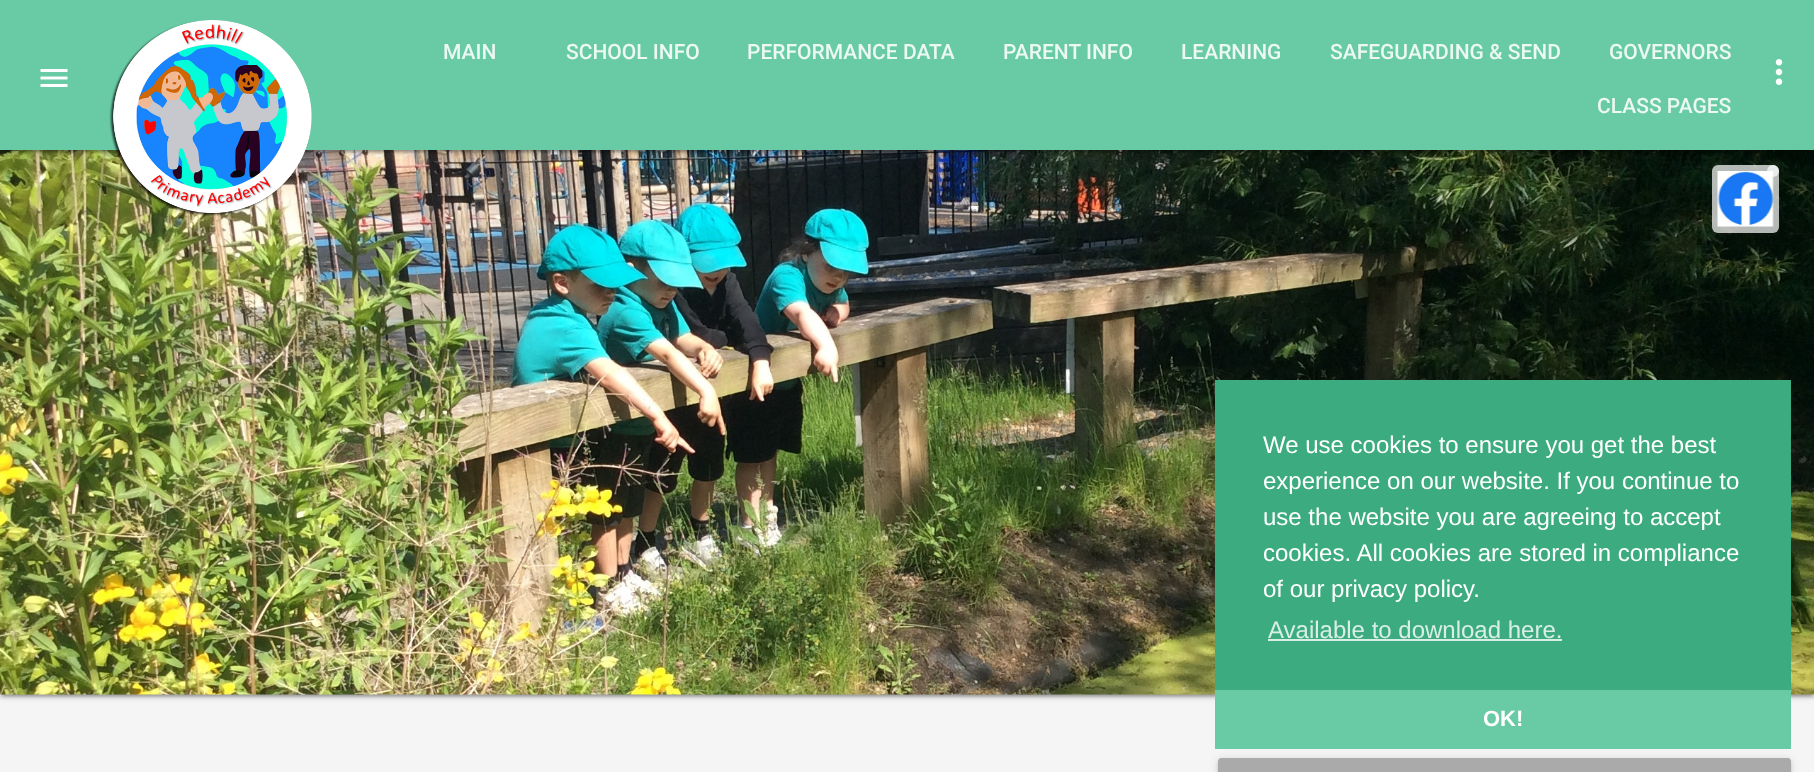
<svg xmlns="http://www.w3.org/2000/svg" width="1814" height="772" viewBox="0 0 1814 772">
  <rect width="100%" height="100%" fill="#f5f5f5"/>
  <path d="M0 152h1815v544H0z" fill="#0000001f" filter="blur(4px)"/>
  <path d="M3 158h1809v538H3z" fill="#00000033" filter="blur(1px)"/>
  <path d="M0 153h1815v545H0z" fill="#00000024" filter="blur(1.5px)"/>
  <image x="0" y="150" width="1814" height="545" href="img/4.png"/>
  <path d="M0 2h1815v150H0z" fill="#0000001f" filter="blur(4px)"/>
  <path d="M3 8h1809v144H3z" fill="#00000033" filter="blur(1px)"/>
  <path d="M0 3h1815v150H0z" fill="#00000024" filter="blur(1.5px)"/>
  <path d="M0 0h1814v150H0z" fill="#69cba5"/>
  <image x="40" y="69" width="28" height="18" href="img/1.png"/>
  <image x="109" y="20" width="203" height="196" href="img/2.png"/>
  <image x="1775" y="59" width="8" height="26" href="img/3.png"/>
  <rect x="1218" y="759" width="573" height="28" rx="3" fill="#0000001f" filter="blur(4px)"/>
  <rect x="1218" y="761" width="573" height="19" rx="3" fill="#00000024" filter="blur(1.5px)"/>
  <path d="M1221 758H1788C1789.5 758 1791 759.5 1791 761V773H1218V761C1218 759.5 1219.5 758 1221 758Z" fill="#aaa"/>
  <circle cx="1773" cy="171" r="6" fill="#ffffffb3"/>
  <rect x="1712" y="165" width="67" height="68" rx="6" fill="#ffffffb3"/>
  <image x="1717" y="171" width="57" height="56" href="img/5.png"/>
  <path d="M1215 380h576v310H1215z" fill="#3cac80"/>
  <path d="M1268 639h294v2H1268z" fill="#d8eee6"/>
  <path d="M1215 690h576v59H1215z" fill="#69cba5"/>
  <g font-family="Roboto" font-size="21" font-weight="500" fill="#ecf8f3">
    <text x="443" y="59">MAIN</text>
    <text x="566" y="59">SCHOOL INFO</text>
    <text x="747" y="59">PERFORMANCE DATA</text>
    <text x="1003" y="59">PARENT INFO</text>
    <text x="1181" y="59">LEARNING</text>
    <text x="1330" y="59">SAFEGUARDING &amp; SEND</text>
    <text x="1609" y="59">GOVERNORS</text>
    <text x="1597" y="113">CLASS PAGES</text>
  </g>
  <g font-family="Liberation Sans" font-size="24" fill="#fff">
    <text x="1263" y="453">We use cookies to ensure you get the best</text>
    <text x="1263" y="489">experience on our website. If you continue to</text>
    <text x="1263" y="525">use the website you are agreeing to accept</text>
    <text x="1263" y="561">cookies. All cookies are stored in compliance</text>
    <text x="1263" y="597">of our privacy policy.</text>
  </g>
  <text x="1268" y="638" font-family="Liberation Sans" font-size="24" fill="#d8eee6">Available to download here.</text>
  <text x="1483" y="726" font-family="Liberation Sans" font-size="22" font-weight="bold" fill="#fff">OK!</text>
</svg>
